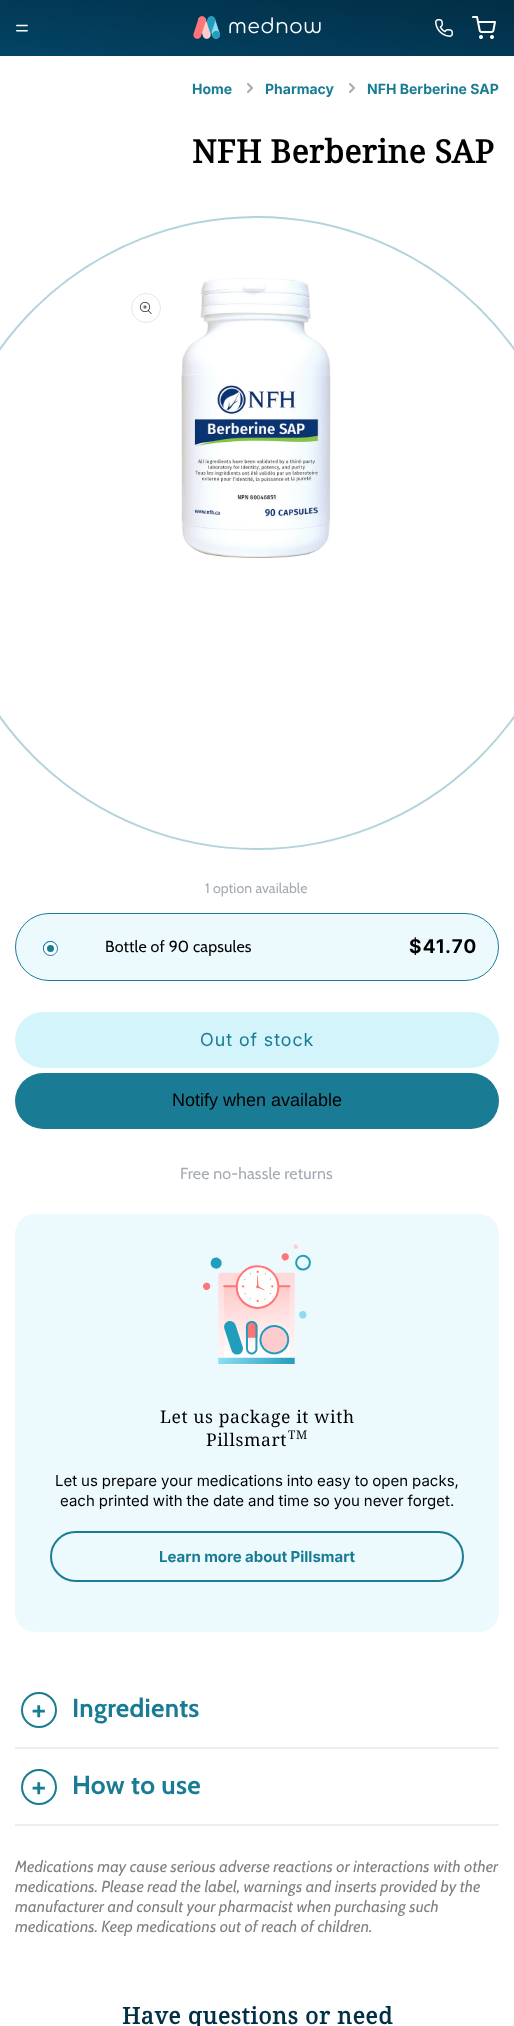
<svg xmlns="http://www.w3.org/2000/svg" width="514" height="2026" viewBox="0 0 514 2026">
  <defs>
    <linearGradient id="g1" gradientUnits="userSpaceOnUse" x1="264" y1="-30" x2="247" y2="108"><stop offset="0.04" stop-color="#022f47"/><stop offset="1" stop-color="#03486b"/></linearGradient>
  </defs>
  <rect width="100%" height="100%" fill="#fff"/>
  <path d="M0 0h514v56H0z" fill="url(#g1)"/>
  <image x="16" y="24" width="12" height="8" href="img/1.png"/>
  <image x="193" y="16" width="128" height="23" href="img/2.png"/>
  <image x="435" y="19" width="18" height="18" href="img/3.png"/>
  <image x="472" y="16" width="24" height="23" href="img/4.png"/>
  <path d="M248 92L252 88L248 84" fill="none" stroke="#a5abb3" stroke-width="2" stroke-linecap="round" stroke-linejoin="round"/>
  <path d="M350 92L354 88L350 84" fill="none" stroke="#a5abb3" stroke-width="2" stroke-linecap="round" stroke-linejoin="round"/>
  <circle cx="257" cy="533" r="316" fill="none" stroke="#b3d4dc" stroke-width="2"/>
  <circle cx="146" cy="308" r="14.5" fill="none" stroke="#e6e6e6"/>
  <image x="140" y="302" width="12" height="12" href="img/5.png"/>
  <image x="181" y="278" width="150" height="280" href="img/6.png"/>
  <rect x="15.5" y="913.5" width="483" height="67" rx="33.5" fill="#ecfafe" stroke="#1a7c94"/>
  <circle cx="50" cy="948" r="6.5" fill="none" stroke="#0075ff"/>
  <circle cx="50.5" cy="948.5" r="7" fill="none" stroke="#1a7c94"/>
  <circle cx="50.5" cy="948.5" r="5" fill="#1a7c94" stroke="#fff" stroke-width="3"/>
  <rect x="15" y="1012" width="484" height="56" rx="28" fill="#d4f4fc"/>
  <rect x="15" y="1073" width="484" height="56" rx="28" fill="#1a7c94"/>
  <rect x="15" y="1214" width="484" height="418" rx="20" fill="#ecfafe"/>
  <image x="203" y="1244" width="108" height="121" href="img/7.png"/>
  <rect x="51" y="1532" width="412" height="49" rx="24.5" fill="none" stroke="#1a7c94" stroke-width="2"/>
  <circle cx="39" cy="1710" r="17" fill="none" stroke="#1a7c94" stroke-width="2"/>
  <path d="M15 1747h484v2H15z" fill="#ebeef2"/>
  <circle cx="39" cy="1787" r="17" fill="none" stroke="#1a7c94" stroke-width="2"/>
  <path d="M15 1824h484v2H15z" fill="#ebeef2"/>
  <g font-family="Inter" font-size="14" font-weight="bold" fill="#1a7c94">
    <text x="192" y="94">Home</text>
    <text x="265" y="94">Pharmacy</text>
    <text x="367" y="94">NFH Berberine SAP</text>
  </g>
  <text x="192" y="163" font-family="Noto Serif" font-size="32" font-weight="bold" letter-spacing="0.3" fill="#000">NFH Berberine SAP</text>
  <text x="205" y="893" font-family="Cabin" font-size="14" letter-spacing="0.1" fill="#a5abb3">1 option available</text>
  <text x="105" y="952" font-family="Cabin" font-size="16" letter-spacing="0.15" fill="#000">Bottle of 90 capsules</text>
  <text x="409" y="953" font-family="'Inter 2'" font-size="19" font-weight="bold" letter-spacing="1.25" fill="#000">$41.70</text>
  <text x="200" y="1046" font-family="'Inter 2'" font-size="18" letter-spacing="1" fill="#1a7c94">Out of stock</text>
  <text x="172" y="1106" font-family="Liberation Sans" font-size="18" fill="#000">Notify when available</text>
  <text x="180" y="1179" font-family="Cabin" font-size="16" letter-spacing="0.15" fill="#a5abb3">Free no-hassle returns</text>
  <g font-family="Noto Serif" font-size="17.5" letter-spacing="0.6" fill="#000">
    <text x="160" y="1423">Let us package it with</text>
    <text x="206" y="1446">Pillsmart</text>
  </g>
  <text x="288" y="1439" font-family="Noto Serif" font-size="12" letter-spacing="0.6" fill="#000">TM</text>
  <g font-family="Inter" font-size="15" fill="#000">
    <text x="55" y="1486" word-spacing="-0.25">Let us prepare your medications into easy to open packs,</text>
    <text x="60" y="1506" word-spacing="-0.25">each printed with the date and time so you never forget.</text>
  </g>
  <text x="159" y="1562" word-spacing="-0.25" font-family="Inter" font-size="15" font-weight="bold" fill="#1a7c94">Learn more about Pillsmart</text>
  <text x="31" y="1721" font-family="Cabin" font-size="35" letter-spacing="0.25" fill="#1a7c94">+</text>
  <text x="72" y="1717" font-family="Cabin" font-size="26" font-weight="bold" letter-spacing="0.25" fill="#1a7c94">Ingredients</text>
  <text x="31" y="1798" font-family="Cabin" font-size="35" letter-spacing="0.25" fill="#1a7c94">+</text>
  <text x="72" y="1794" font-family="Cabin" font-size="26" font-weight="bold" letter-spacing="0.25" fill="#1a7c94">How to use</text>
  <g font-family="Cabin" font-size="16" font-style="italic" letter-spacing="0.15" fill="#808080">
    <text x="15" y="1872">Medications may cause serious adverse reactions or interactions with other</text>
    <text x="15" y="1892">medications. Please read the label, warnings and inserts provided by the</text>
    <text x="15" y="1912">manufacturer and consult your pharmacist when purchasing such</text>
    <text x="15" y="1932">medications. Keep medications out of reach of children.</text>
  </g>
  <text x="122" y="2024" font-family="Noto Serif" font-size="23" font-weight="bold" letter-spacing="0.6" fill="#023047">Have questions or need</text>
</svg>
